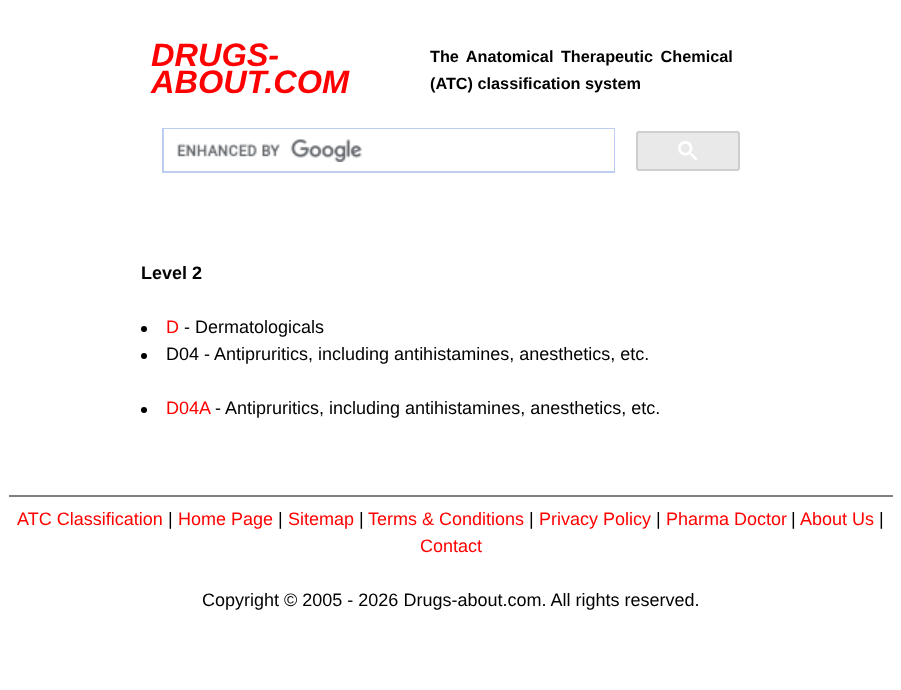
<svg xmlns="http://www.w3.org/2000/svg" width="901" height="690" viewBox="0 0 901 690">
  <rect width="100%" height="100%" fill="#fff"/>
  <path d="M163 129h451v43H163z" fill="none" stroke="#bccdf0" stroke-width="2"/>
  <path d="M164 129h450v42H164z" fill="#fff"/>
  <image x="177" y="139" width="185" height="23" href="img/1.png"/>
  <rect x="637" y="132" width="102" height="38" rx="2" fill="#e9e9e9" stroke="#cecece" stroke-width="2"/>
  <image x="678" y="141" width="20" height="20" href="img/2.png"/>
  <circle cx="144" cy="329" r="3" fill="#000"/>
  <circle cx="144" cy="356" r="3" fill="#000"/>
  <circle cx="144" cy="410" r="3" fill="#000"/>
  <path d="M9 495h884v2H9z" fill="#808080"/>
  <g font-family="Liberation Sans" font-size="32.5" font-weight="bold" font-style="italic" fill="#f00">
    <text x="151" y="66">DRUGS-</text>
    <text x="151" y="93">ABOUT.COM</text>
  </g>
  <g font-family="Liberation Sans" font-size="16.25" font-weight="bold" fill="#000">
    <text x="430" y="62" word-spacing="3">The Anatomical Therapeutic Chemical</text>
    <text x="430" y="89">(ATC) classification system</text>
  </g>
  <text x="141" y="279" font-family="Liberation Sans" font-size="18" font-weight="bold" fill="#000">Level 2</text>
  <text x="166" y="333" font-family="Liberation Sans" font-size="18" fill="#f00">D</text>
  <g font-family="Liberation Sans" font-size="18" fill="#000">
    <text x="184" y="333">- Dermatologicals</text>
    <text x="166" y="360">D04 - Antipruritics, including antihistamines, anesthetics, etc.</text>
  </g>
  <text x="166" y="414" font-family="Liberation Sans" font-size="18" fill="#f00">D04A</text>
  <text x="215" y="414" font-family="Liberation Sans" font-size="18" fill="#000">- Antipruritics, including antihistamines, anesthetics, etc.</text>
  <text x="17" y="525" font-family="Liberation Sans" font-size="18" fill="#f00">ATC Classification</text>
  <text x="168" y="525" font-family="Liberation Sans" font-size="18" fill="#000">|</text>
  <text x="178" y="525" font-family="Liberation Sans" font-size="18" fill="#f00">Home Page</text>
  <text x="278" y="525" font-family="Liberation Sans" font-size="18" fill="#000">|</text>
  <text x="288" y="525" font-family="Liberation Sans" font-size="18" fill="#f00">Sitemap</text>
  <text x="359" y="525" font-family="Liberation Sans" font-size="18" fill="#000">|</text>
  <text x="368" y="525" font-family="Liberation Sans" font-size="18" fill="#f00">Terms &amp; Conditions</text>
  <text x="529" y="525" font-family="Liberation Sans" font-size="18" fill="#000">|</text>
  <text x="539" y="525" font-family="Liberation Sans" font-size="18" fill="#f00">Privacy Policy</text>
  <text x="656" y="525" font-family="Liberation Sans" font-size="18" fill="#000">|</text>
  <text x="666" y="525" font-family="Liberation Sans" font-size="18" fill="#f00">Pharma Doctor</text>
  <text x="791" y="525" font-family="Liberation Sans" font-size="18" fill="#000">|</text>
  <text x="800" y="525" font-family="Liberation Sans" font-size="18" fill="#f00">About Us</text>
  <text x="879" y="525" font-family="Liberation Sans" font-size="18" fill="#000">|</text>
  <text x="420" y="552" font-family="Liberation Sans" font-size="18" fill="#f00">Contact</text>
  <text x="202" y="606" font-family="Liberation Sans" font-size="18" fill="#000">Copyright © 2005 - 2026 Drugs-about.com. All rights reserved.</text>
</svg>
